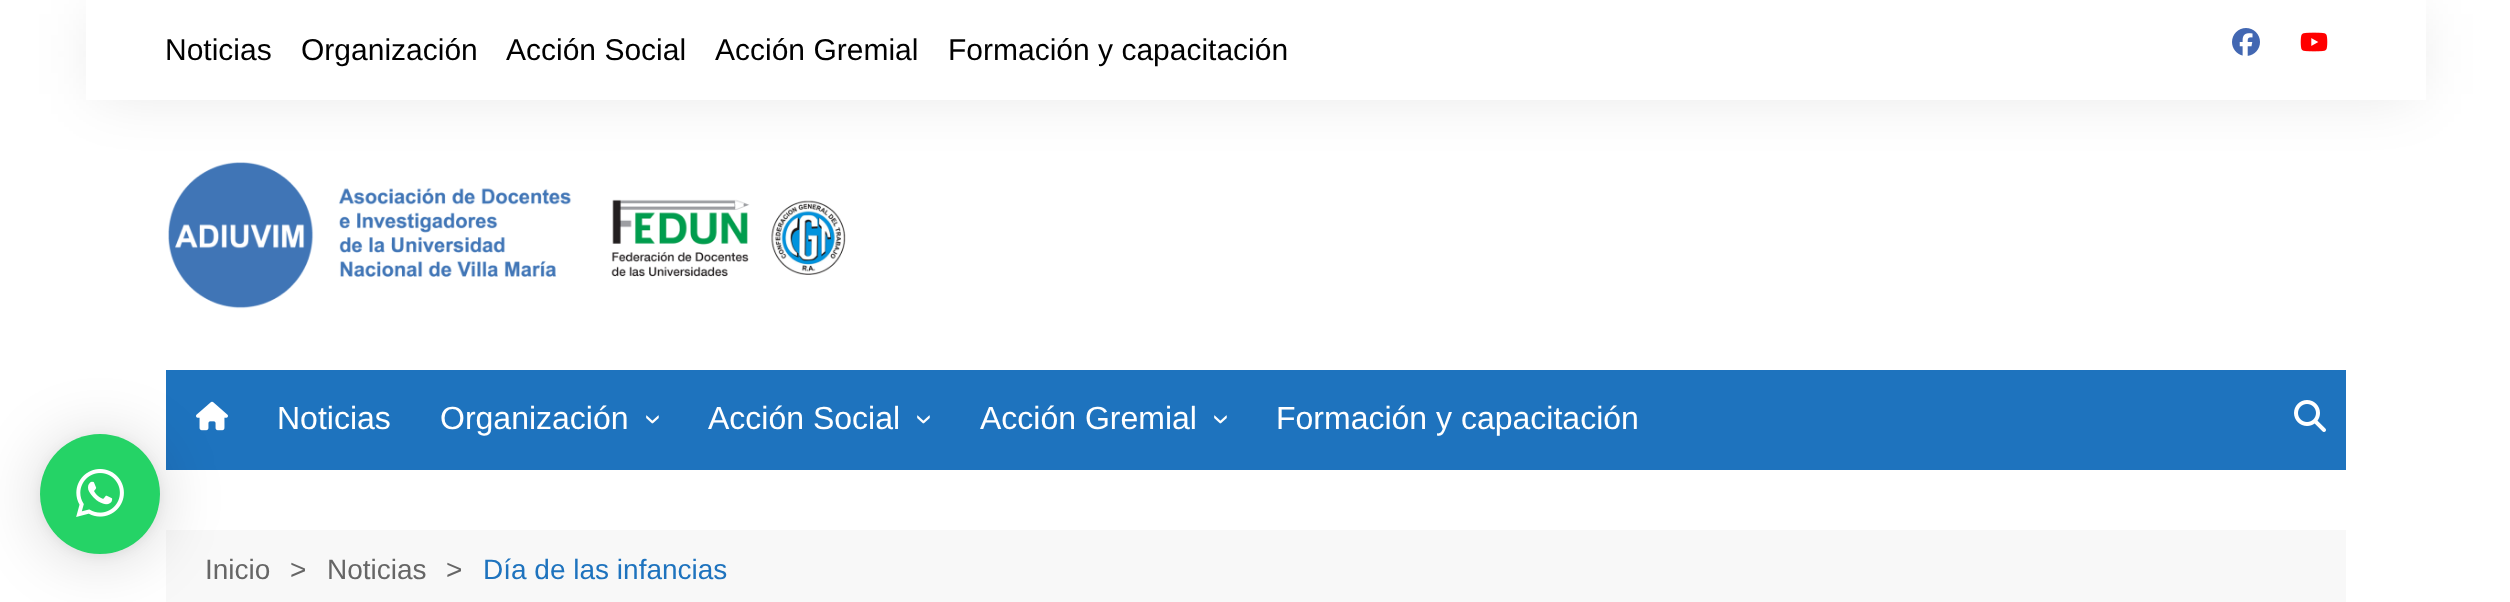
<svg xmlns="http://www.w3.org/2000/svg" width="2510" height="602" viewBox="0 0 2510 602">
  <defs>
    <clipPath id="clip1"><path d="M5 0H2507V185H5ZM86 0H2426V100H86Z" clip-rule="evenodd"/></clipPath>
  </defs>
  <rect width="100%" height="100%" fill="#fff"/>
  <path d="M166 370h2180v100H166z" fill="#1e73be"/>
  <image x="196" y="401" width="32" height="30" href="img/5.png"/>
  <path d="M166 530h2180v72H166z" fill="#f8f8f8"/>
  <rect x="40" y="438" width="120" height="120" rx="60" fill="#00000029" filter="blur(32px)"/>
  <rect x="40" y="436" width="120" height="120" rx="60" fill="#0000000f" filter="blur(6px)"/>
  <circle cx="100" cy="494" r="60" fill="#25d366"/>
  <image x="76" y="469" width="48" height="48" href="img/1.png"/>
  <g clip-path="url(#clip1)">
    <path d="M96 14h2320v80H96z" fill="#0000001a" filter="blur(30px)"/>
  </g>
  <image x="2232" y="28" width="28" height="28" href="img/2.png"/>
  <image x="2300" y="32" width="28" height="20" href="img/3.png"/>
  <image x="168" y="162" width="678" height="147" href="img/4.png"/>
  <image x="2294" y="400" width="32" height="32" href="img/6.png"/>
  <g font-family="Liberation Sans" font-size="30" fill="#010101">
    <text x="165" y="60">Noticias</text>
    <text x="301" y="60">Organización</text>
    <text x="506" y="60">Acción Social</text>
    <text x="715" y="60">Acción Gremial</text>
    <text x="948" y="60">Formación y capacitación</text>
  </g>
  <g font-family="Liberation Sans" font-size="32" fill="#fff">
    <text x="277" y="429">Noticias</text>
    <text x="440" y="429">Organización</text>
    <text x="644" y="414" transform="rotate(90 644 414)">›</text>
    <text x="708" y="429">Acción Social</text>
    <text x="915" y="414" transform="rotate(90 915 414)">›</text>
    <text x="980" y="429">Acción Gremial</text>
    <text x="1212" y="414" transform="rotate(90 1212 414)">›</text>
    <text x="1276" y="429">Formación y capacitación</text>
  </g>
  <g font-family="Liberation Sans" font-size="28" fill="#666">
    <text x="205" y="579">Inicio</text>
    <text x="290" y="579">&gt;</text>
    <text x="327" y="579">Noticias</text>
    <text x="446" y="579">&gt;</text>
  </g>
  <text x="483" y="579" font-family="Liberation Sans" font-size="28" fill="#1e73be">Día de las infancias</text>
</svg>
